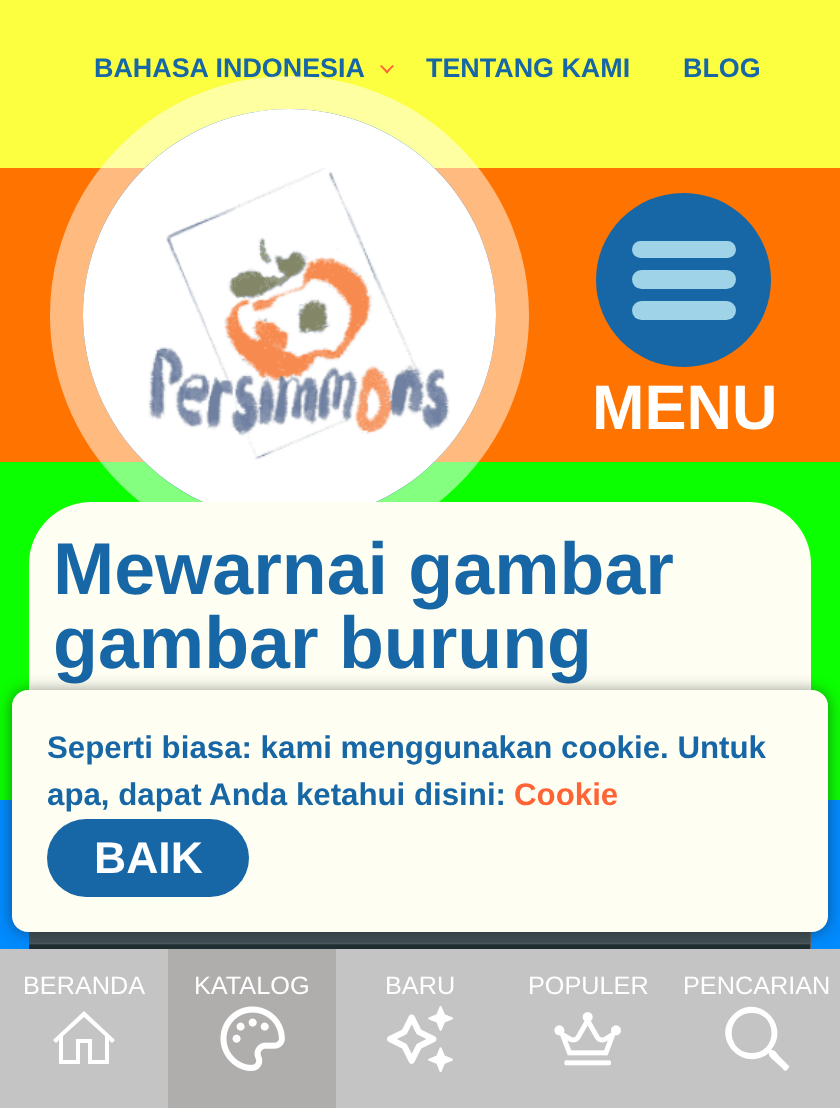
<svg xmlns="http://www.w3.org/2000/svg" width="840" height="1108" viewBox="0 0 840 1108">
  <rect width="100%" height="100%" fill="#0bff00"/>
  <path d="M0 800h840v149H0z" fill="#008bff"/>
  <path d="M0 0h840v168H0z" fill="#fbff40"/>
  <path d="M392.5 65L394 66L387 73.5L385.5 72Z" fill="#ff6436"/>
  <path d="M381.5 65L388.5 72L387 73.5L380 66Z" fill="#ff6436"/>
  <path d="M0 168h840v294H0z" fill="#ff7400"/>
  <rect x="83" y="109" width="413" height="412" rx="206" fill="#1766a6"/>
  <image x="83" y="109" width="413" height="393" href="img/1.png"/>
  <rect x="596" y="193" width="175" height="174" rx="87" fill="#1766a6"/>
  <rect x="632" y="301" width="104" height="19" rx="9.5" fill="#9fd3e7"/>
  <rect x="632" y="270" width="104" height="19" rx="9.5" fill="#9fd3e7"/>
  <rect x="632" y="241" width="104" height="17" rx="8.5" fill="#9fd3e7"/>
  <g font-family="Liberation Sans" font-size="26.9" font-weight="bold" fill="#1766a6">
    <text x="94" y="77">BAHASA INDONESIA</text>
    <text x="426" y="77">TENTANG KAMI</text>
    <text x="683" y="77">BLOG</text>
  </g>
  <rect x="66.5" y="92.5" width="446" height="445" rx="222.5" fill="none" stroke="#ffffff80" stroke-width="33"/>
  <text x="592" y="429" font-family="Liberation Sans" font-size="63" font-weight="bold" fill="#fff">MENU</text>
  <rect x="29" y="502" width="782" height="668" rx="62" fill="#fefff2"/>
  <g font-family="Liberation Sans" font-size="73.5" font-weight="bold" fill="#1766a6">
    <text x="53" y="594">Mewarnai gambar</text>
    <text x="53" y="668">gambar burung</text>
  </g>
  <path d="M810 932h1v17H810z" fill="#5f5f5f"/>
  <image x="29" y="932" width="781" height="17" href="img/2.png"/>
  <path d="M0 949h840v159H0z" fill="#c4c4c4"/>
  <text x="23" y="994" font-family="Liberation Sans" font-size="25.25" fill="#fff">BERANDA</text>
  <path d="M84 1011L53 1040L56 1043L59 1040V1064H80V1043H88V1064H109V1040L112 1043L115 1040ZM84 1017L105 1036V1060H92V1039H76V1060H63V1036Z" fill="#fff"/>
  <path d="M168 949h168v159H168z" fill="#b0adad"/>
  <rect x="12" y="691" width="816" height="242" rx="16" fill="#15191e80" filter="blur(8px)"/>
  <rect x="12" y="690" width="816" height="242" rx="16" fill="#fefff2"/>
  <rect x="47" y="819" width="202" height="78" rx="39" fill="#1766a6"/>
  <text x="94" y="873" font-family="Liberation Sans" font-size="44.5" font-weight="bold" fill="#fff">BAIK</text>
  <text x="514" y="805" font-family="Liberation Sans" font-size="31.25" font-weight="bold" fill="#ff6436">Cookie</text>
  <g font-family="Liberation Sans" font-size="31.25" font-weight="bold" fill="#1766a6">
    <text x="47" y="805">apa, dapat Anda ketahui disini:</text>
    <text x="47" y="758">Seperti biasa: kami menggunakan cookie. Untuk</text>
  </g>
  <text x="194" y="994" font-family="Liberation Sans" font-size="25.25" fill="#fff">KATALOG</text>
  <image x="220" y="1006" width="65" height="65" href="img/3.png"/>
  <text x="385" y="994" font-family="Liberation Sans" font-size="25.25" fill="#fff">BARU</text>
  <image x="387" y="1006" width="66" height="66" href="img/4.png"/>
  <text x="528" y="994" font-family="Liberation Sans" font-size="25.25" fill="#fff">POPULER</text>
  <image x="554" y="1012" width="67" height="54" href="img/5.png"/>
  <text x="683" y="994" font-family="Liberation Sans" font-size="25.25" fill="#fff">PENCARIAN</text>
  <path d="M789 1066L779 1056C776 1052 775 1050 771 1050C792 1025 757 991 733 1015C710 1038 743 1074 769 1053C769 1056 769 1055 771 1058L782 1068C785 1071 785 1072 788 1069C788 1068 790 1067 789 1066ZM752 1053C725 1053 725 1013 752 1013C778 1013 778 1053 752 1053Z" fill="#fff"/>
</svg>
